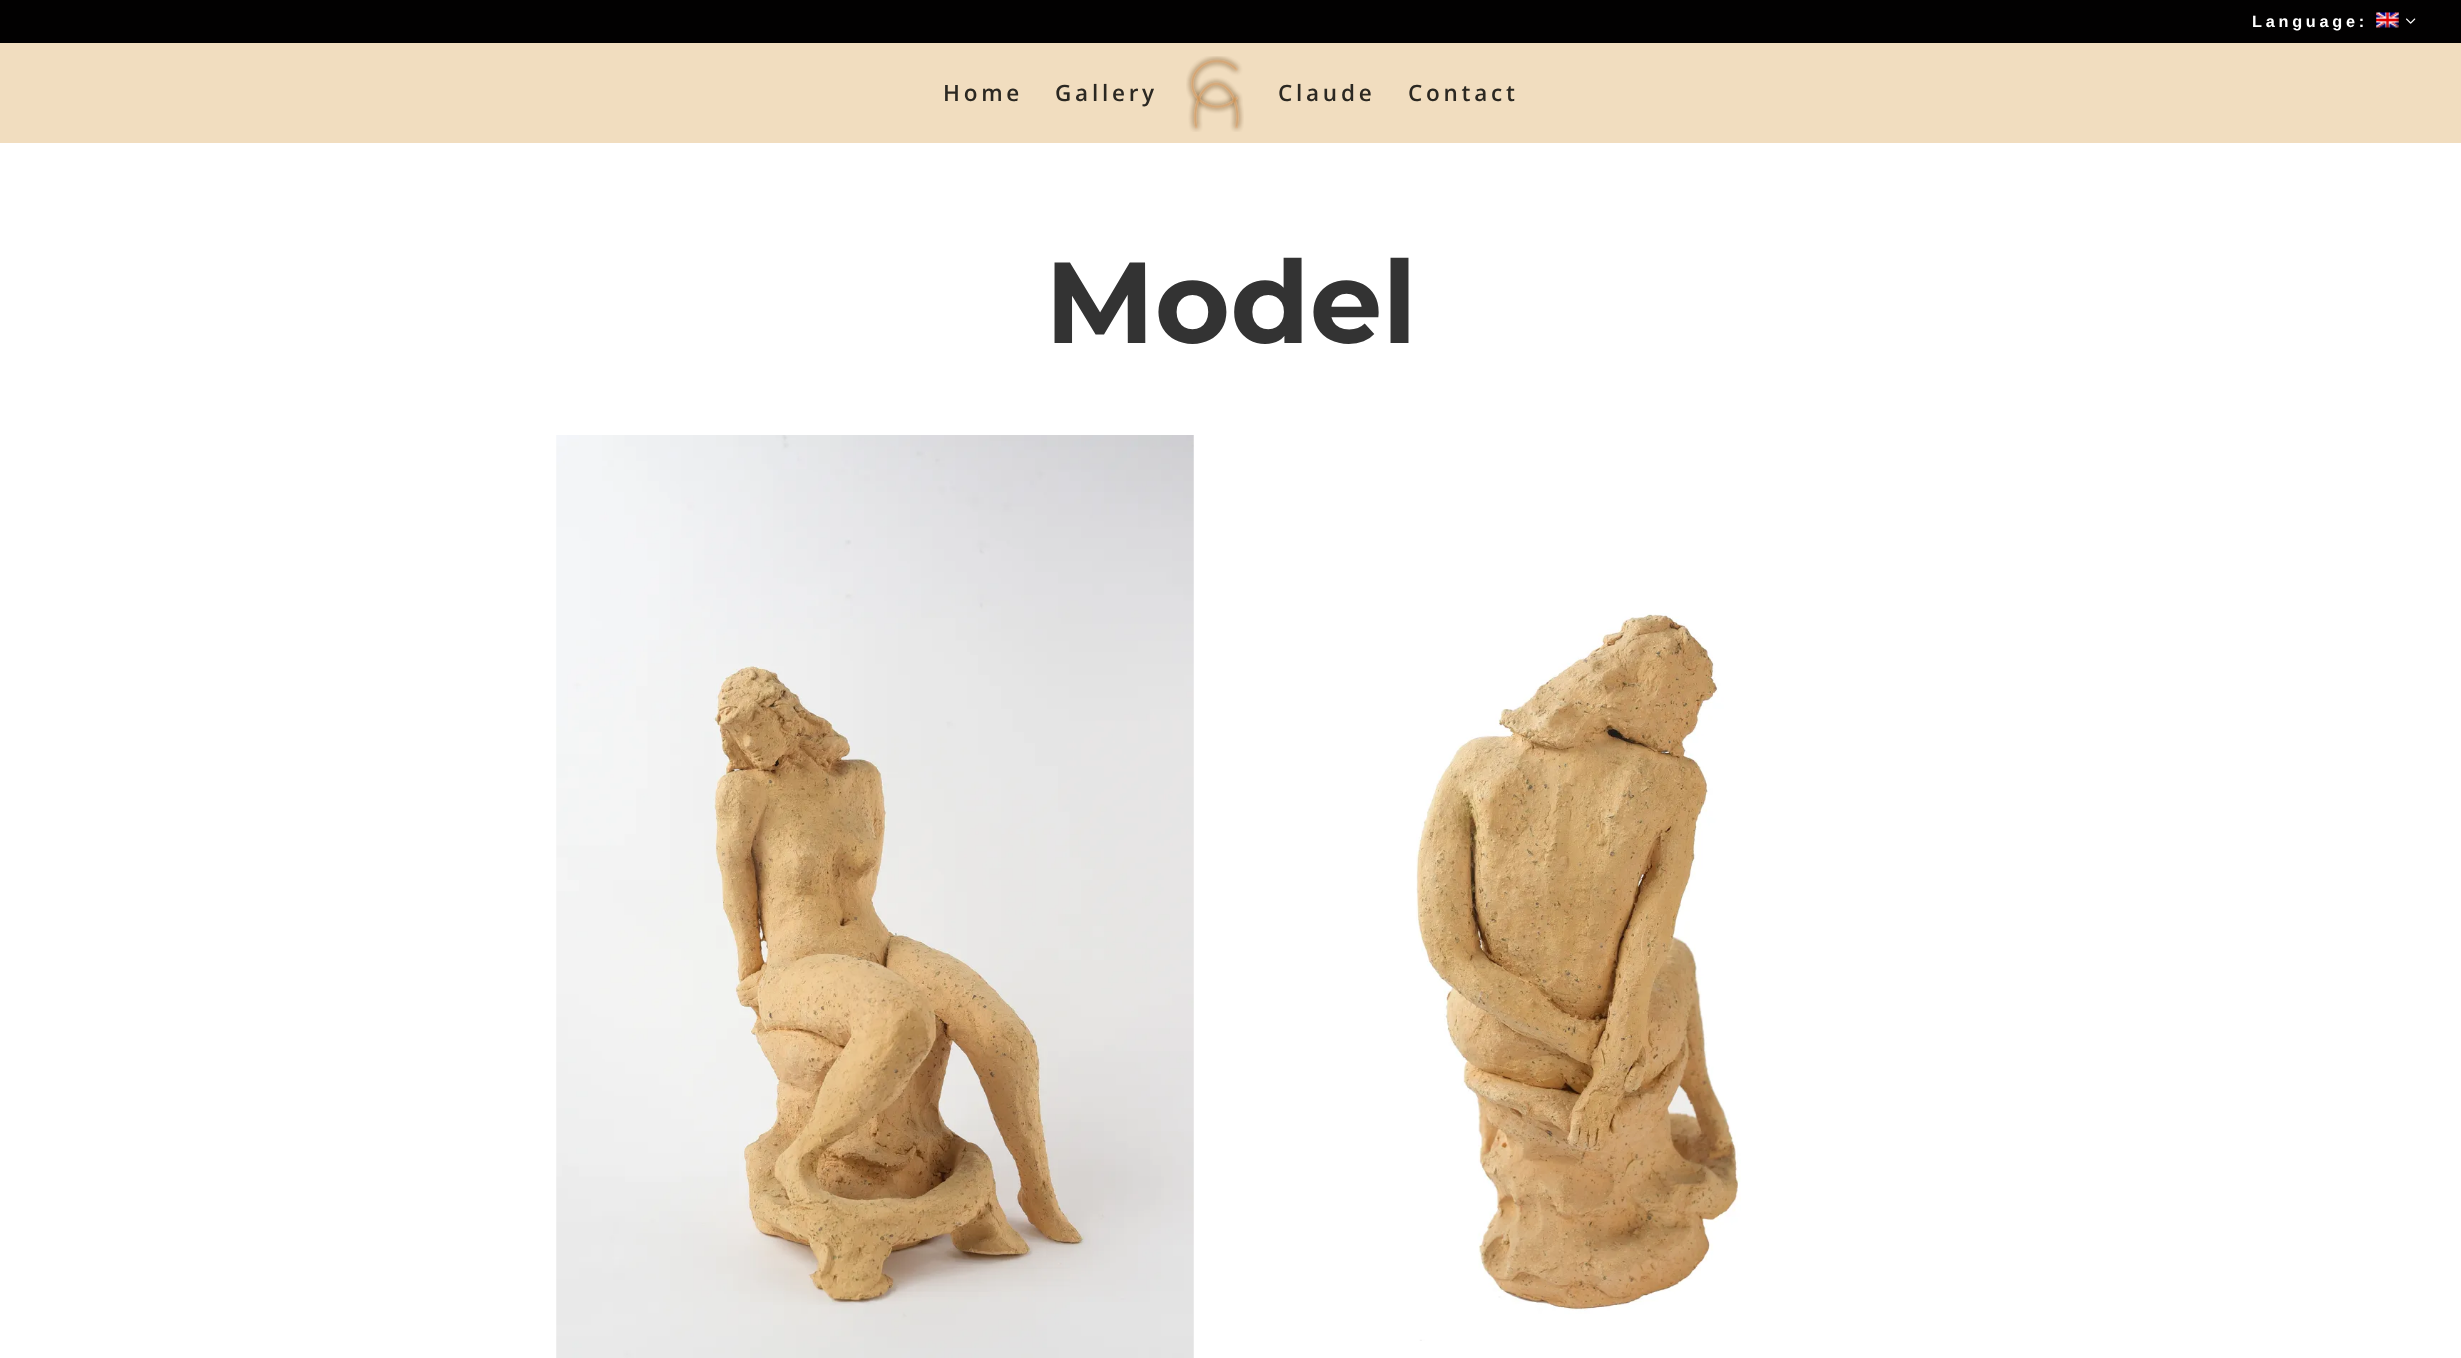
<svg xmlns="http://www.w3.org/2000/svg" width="2461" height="1358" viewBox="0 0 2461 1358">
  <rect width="100%" height="100%" fill="#fff"/>
  <path d="M0 0h2461v43H0z" fill="#020101"/>
  <image x="2376" y="12" width="23" height="16" href="img/1.png"/>
  <image x="2406" y="18" width="10" height="6" href="img/2.png"/>
  <path d="M0 43h2461v100H0z" fill="#f1ddbf"/>
  <image x="1186" y="56" width="58" height="76" href="img/3.png"/>
  <image x="556" y="435" width="638" height="923" href="img/4.png"/>
  <image x="1416" y="613" width="325" height="728" href="img/5.png"/>
  <text x="2252" y="27" font-family="Liberation Sans" font-size="16.25" font-weight="bold" letter-spacing="3.75" fill="#fff">Language:</text>
  <g font-family="Open Sans" font-size="22.5" font-weight="600" letter-spacing="3.75" fill="#2b2822">
    <text x="943" y="101">Home</text>
    <text x="1055" y="101">Gallery</text>
    <text x="1278" y="101">Claude</text>
    <text x="1408" y="101">Contact</text>
  </g>
  <text x="1045" y="343" font-family="Montserrat" font-size="115" font-weight="bold" fill="#333">Model</text>
</svg>
